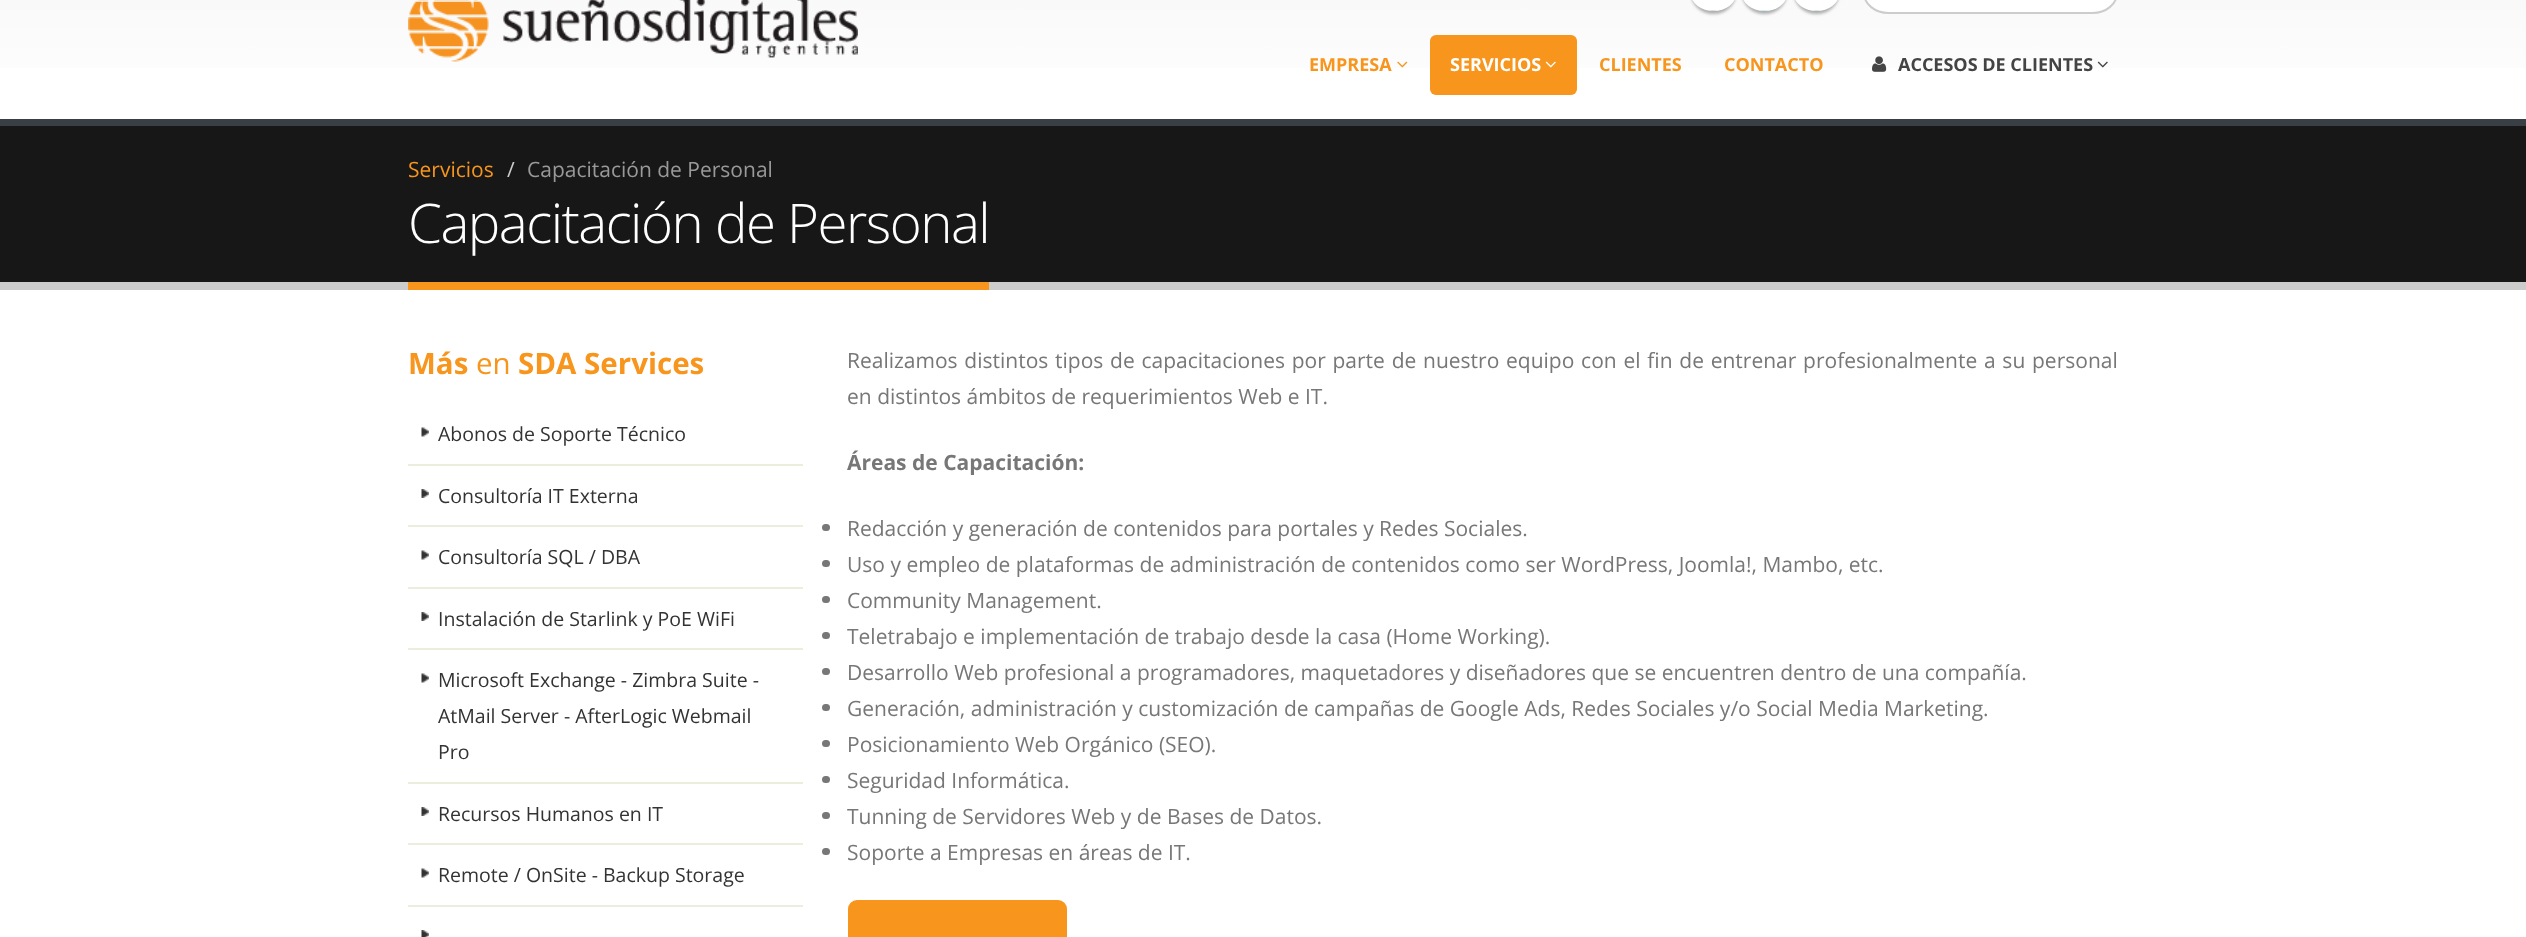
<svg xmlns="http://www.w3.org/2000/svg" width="2526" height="937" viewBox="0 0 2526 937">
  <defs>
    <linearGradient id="g1" gradientUnits="userSpaceOnUse" x1="1263" y1="-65" x2="1263" y2="119"><stop offset="0" stop-color="#f6f6f6"/><stop offset="1" stop-color="#fff"/></linearGradient>
  </defs>
  <rect width="100%" height="100%" fill="#fff"/>
  <path d="M0 0h2526v68H0z" fill="url(#g1)"/>
  <image x="408" y="0" width="450" height="62" href="img/1.png"/>
  <rect x="1691" y="-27" width="45" height="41" rx="22.5" fill="#0000004d" filter="blur(1.5px)"/>
  <rect x="1691" y="-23" width="45" height="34" rx="22.5" fill="#fff"/>
  <image x="1709" y="10" width="8" height="1" href="img/2.png"/>
  <rect x="1742" y="-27" width="45" height="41" rx="22.5" fill="#0000004d" filter="blur(1.5px)"/>
  <rect x="1742" y="-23" width="45" height="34" rx="22.5" fill="#fff"/>
  <image x="1760" y="10" width="8" height="1" href="img/3.png"/>
  <rect x="1794" y="-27" width="45" height="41" rx="22.5" fill="#0000004d" filter="blur(1.5px)"/>
  <rect x="1794" y="-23" width="45" height="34" rx="22.5" fill="#fff"/>
  <image x="1813" y="10" width="7" height="1" href="img/4.png"/>
  <rect x="1864" y="-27" width="253" height="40" rx="24.5" fill="#fff" stroke="#ccc" stroke-width="2"/>
  <image x="1397" y="61" width="11" height="7" href="img/5.png"/>
  <rect x="1430" y="35" width="147" height="60" rx="6" fill="#f7951d"/>
  <image x="1545" y="61" width="11" height="7" href="img/6.png"/>
  <image x="1872" y="56" width="15" height="16" href="img/7.png"/>
  <image x="2097" y="61" width="11" height="7" href="img/8.png"/>
  <path d="M0 126h2526v156H0z" fill="#171717"/>
  <path d="M0 119h2526v7H0z" fill="#384045"/>
  <path d="M0 282h2526v8H0z" fill="#ccc"/>
  <path d="M408 282h581v8H408z" fill="#f7951d"/>
  <image x="421" y="427" width="8" height="10" href="img/9.png"/>
  <path d="M408 464h395v2H408z" fill="#ededde"/>
  <image x="421" y="489" width="8" height="9" href="img/10.png"/>
  <path d="M408 525h395v2H408z" fill="#ededde"/>
  <image x="421" y="550" width="8" height="10" href="img/9.png"/>
  <path d="M408 587h395v2H408z" fill="#ededde"/>
  <image x="421" y="612" width="8" height="9" href="img/10.png"/>
  <path d="M408 648h395v2H408z" fill="#ededde"/>
  <image x="421" y="673" width="8" height="10" href="img/9.png"/>
  <path d="M408 782h395v2H408z" fill="#ededde"/>
  <image x="421" y="807" width="8" height="9" href="img/10.png"/>
  <path d="M408 843h395v2H408z" fill="#ededde"/>
  <image x="421" y="868" width="8" height="10" href="img/9.png"/>
  <path d="M408 905h395v2H408z" fill="#ededde"/>
  <image x="421" y="930" width="8" height="7" href="img/11.png"/>
  <rect x="822" y="524" width="8" height="7" rx="3.5" fill="#777"/>
  <rect x="822" y="560" width="8" height="7" rx="3.5" fill="#777"/>
  <rect x="822" y="596" width="8" height="7" rx="3.5" fill="#777"/>
  <rect x="822" y="632" width="8" height="7" rx="3.5" fill="#777"/>
  <rect x="822" y="668" width="8" height="7" rx="3.5" fill="#777"/>
  <rect x="822" y="704" width="8" height="7" rx="3.5" fill="#777"/>
  <rect x="822" y="740" width="8" height="7" rx="3.5" fill="#777"/>
  <rect x="822" y="776" width="8" height="7" rx="3.5" fill="#777"/>
  <rect x="822" y="812" width="8" height="7" rx="3.5" fill="#777"/>
  <rect x="822" y="848" width="8" height="7" rx="3.5" fill="#777"/>
  <rect x="849" y="901" width="217" height="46" rx="8" fill="#f7951d" stroke="#f7951d" stroke-width="2"/>
  <text x="1309" y="71" font-family="Open Sans" font-size="18" font-weight="bold" fill="#f7951d">EMPRESA</text>
  <text x="1450" y="71" font-family="Open Sans" font-size="18" font-weight="bold" fill="#fff">SERVICIOS</text>
  <g font-family="Open Sans" font-size="18" font-weight="bold" fill="#f7951d">
    <text x="1599" y="71">CLIENTES</text>
    <text x="1724" y="71">CONTACTO</text>
  </g>
  <text x="1898" y="71" font-family="Open Sans" font-size="18" font-weight="bold" fill="#444">ACCESOS DE CLIENTES</text>
  <text x="408" y="177" font-family="Open Sans" font-size="21" fill="#f7951d">Servicios</text>
  <text x="507" y="177" font-family="Open Sans" font-size="21" fill="#ccc">/</text>
  <text x="527" y="177" font-family="Open Sans" font-size="21" fill="#999">Capacitación de Personal</text>
  <text x="408" y="243" font-family="Open Sans" font-size="54.6" font-weight="300" letter-spacing="-1.5" fill="#fff">Capacitación de Personal</text>
  <text x="408" y="374" font-family="Open Sans" font-size="29.5" font-weight="bold" fill="#f7951d">Más</text>
  <text x="476" y="374" font-family="Open Sans" font-size="29.5" fill="#f7951d">en</text>
  <text x="518" y="374" font-family="Open Sans" font-size="29.5" font-weight="bold" fill="#f7951d">SDA Services</text>
  <g font-family="Open Sans" font-size="19.5" fill="#333">
    <text x="438" y="441">Abonos de Soporte Técnico</text>
    <text x="438" y="503">Consultoría IT Externa</text>
    <text x="438" y="564">Consultoría SQL / DBA</text>
    <text x="438" y="626">Instalación de Starlink y PoE WiFi</text>
    <text x="438" y="687">Microsoft Exchange - Zimbra Suite -</text>
    <text x="438" y="723">AtMail Server - AfterLogic Webmail</text>
    <text x="438" y="759">Pro</text>
    <text x="438" y="821">Recursos Humanos en IT</text>
    <text x="438" y="882">Remote / OnSite - Backup Storage</text>
  </g>
  <g font-family="Open Sans" font-size="21" fill="#777">
    <text x="847" y="368" word-spacing="1.3">Realizamos distintos tipos de capacitaciones por parte de nuestro equipo con el fin de entrenar profesionalmente a su personal</text>
    <text x="847" y="404">en distintos ámbitos de requerimientos Web e IT.</text>
  </g>
  <text x="847" y="470" font-family="Open Sans" font-size="21" font-weight="bold" fill="#777">Áreas de Capacitación:</text>
  <g font-family="Open Sans" font-size="21" fill="#777">
    <text x="847" y="536">Redacción y generación de contenidos para portales y Redes Sociales.</text>
    <text x="847" y="572">Uso y empleo de plataformas de administración de contenidos como ser WordPress, Joomla!, Mambo, etc.</text>
    <text x="847" y="608">Community Management.</text>
    <text x="847" y="644">Teletrabajo e implementación de trabajo desde la casa (Home Working).</text>
    <text x="847" y="680">Desarrollo Web profesional a programadores, maquetadores y diseñadores que se encuentren dentro de una compañía.</text>
    <text x="847" y="716">Generación, administración y customización de campañas de Google Ads, Redes Sociales y/o Social Media Marketing.</text>
    <text x="847" y="752">Posicionamiento Web Orgánico (SEO).</text>
    <text x="847" y="788">Seguridad Informática.</text>
    <text x="847" y="824">Tunning de Servidores Web y de Bases de Datos.</text>
    <text x="847" y="860">Soporte a Empresas en áreas de IT.</text>
  </g>
</svg>
